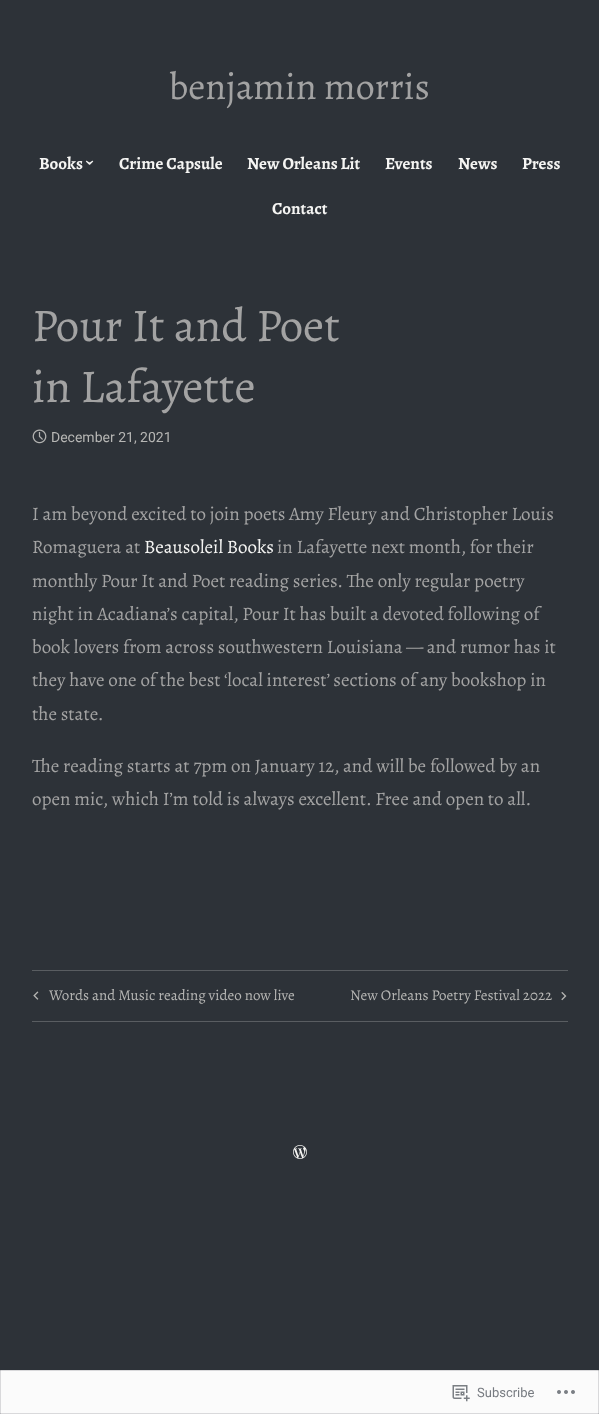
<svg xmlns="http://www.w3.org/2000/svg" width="599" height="1414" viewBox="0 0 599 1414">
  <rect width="100%" height="100%" fill="#2d3238"/>
  <image x="32" y="429" width="15" height="15" href="img/1.png"/>
  <path d="M32 970h536v1H32z" fill="#595d61"/>
  <path d="M32 1021h536v1H32z" fill="#595d61"/>
  <image x="33" y="991" width="6" height="9" href="img/2.png"/>
  <image x="561" y="992" width="6" height="9" href="img/3.png"/>
  <image x="293" y="1145" width="14" height="14" href="img/4.png"/>
  <path d="M0.5 1370.5h598v43H0.5z" fill="#fbfbfb" stroke="#d9d9db"/>
  <image x="452" y="1385" width="18" height="17" href="img/5.png"/>
  <image x="557" y="1390" width="18" height="4" href="img/6.png"/>
  <text x="169" y="99" font-family="Alegreya" font-size="38" fill="#a3a3a3">benjamin morris</text>
  <text x="39" y="169" font-family="Alegreya" font-size="17" font-weight="bold" fill="#f5f5f3">Books</text>
  <text x="85" y="160" transform="rotate(90 85 160)" font-family="Alegreya" font-size="20" font-weight="bold" fill="#f5f5f3">›</text>
  <g font-family="Alegreya" font-size="17" font-weight="bold" fill="#f5f5f3">
    <text x="119" y="169">Crime Capsule</text>
    <text x="247" y="169">New Orleans Lit</text>
    <text x="385" y="169">Events</text>
    <text x="458" y="169">News</text>
    <text x="522" y="169">Press</text>
    <text x="272" y="214">Contact</text>
  </g>
  <g font-family="Alegreya" font-size="47" fill="#a3a3a3">
    <text x="32" y="341">Pour It and Poet</text>
    <text x="32" y="402">in Lafayette</text>
  </g>
  <text x="51" y="442" font-family="Roboto" font-size="14" fill="#b6b6b4">December 21, 2021</text>
  <g font-family="Alegreya" font-size="19" fill="#a3a3a3">
    <text x="32" y="520">I am beyond excited to join poets Amy Fleury and Christopher Louis</text>
    <text x="32" y="553">Romaguera at</text>
  </g>
  <text x="144" y="553" font-family="Alegreya" font-size="19" fill="#f5f5f3">Beausoleil Books</text>
  <g font-family="Alegreya" font-size="19" fill="#a3a3a3">
    <text x="277" y="553">in Lafayette next month, for their</text>
    <text x="32" y="587">monthly Pour It and Poet reading series. The only regular poetry</text>
    <text x="32" y="620">night in Acadiana’s capital, Pour It has built a devoted following of</text>
    <text x="32" y="653">book lovers from across southwestern Louisiana — and rumor has it</text>
    <text x="32" y="686">they have one of the best ‘local interest’ sections of any bookshop in</text>
    <text x="32" y="720">the state.</text>
    <text x="32" y="772">The reading starts at 7pm on January 12, and will be followed by an</text>
    <text x="32" y="805">open mic, which I’m told is always excellent. Free and open to all.</text>
  </g>
  <g font-family="Alegreya" font-size="15" fill="#b6b6b4">
    <text x="49" y="1000">Words and Music reading video now live</text>
    <text x="350" y="1000">New Orleans Poetry Festival 2022</text>
  </g>
  <text x="477" y="1397" font-family="Roboto" font-size="13" fill="#777b81">Subscribe</text>
</svg>
